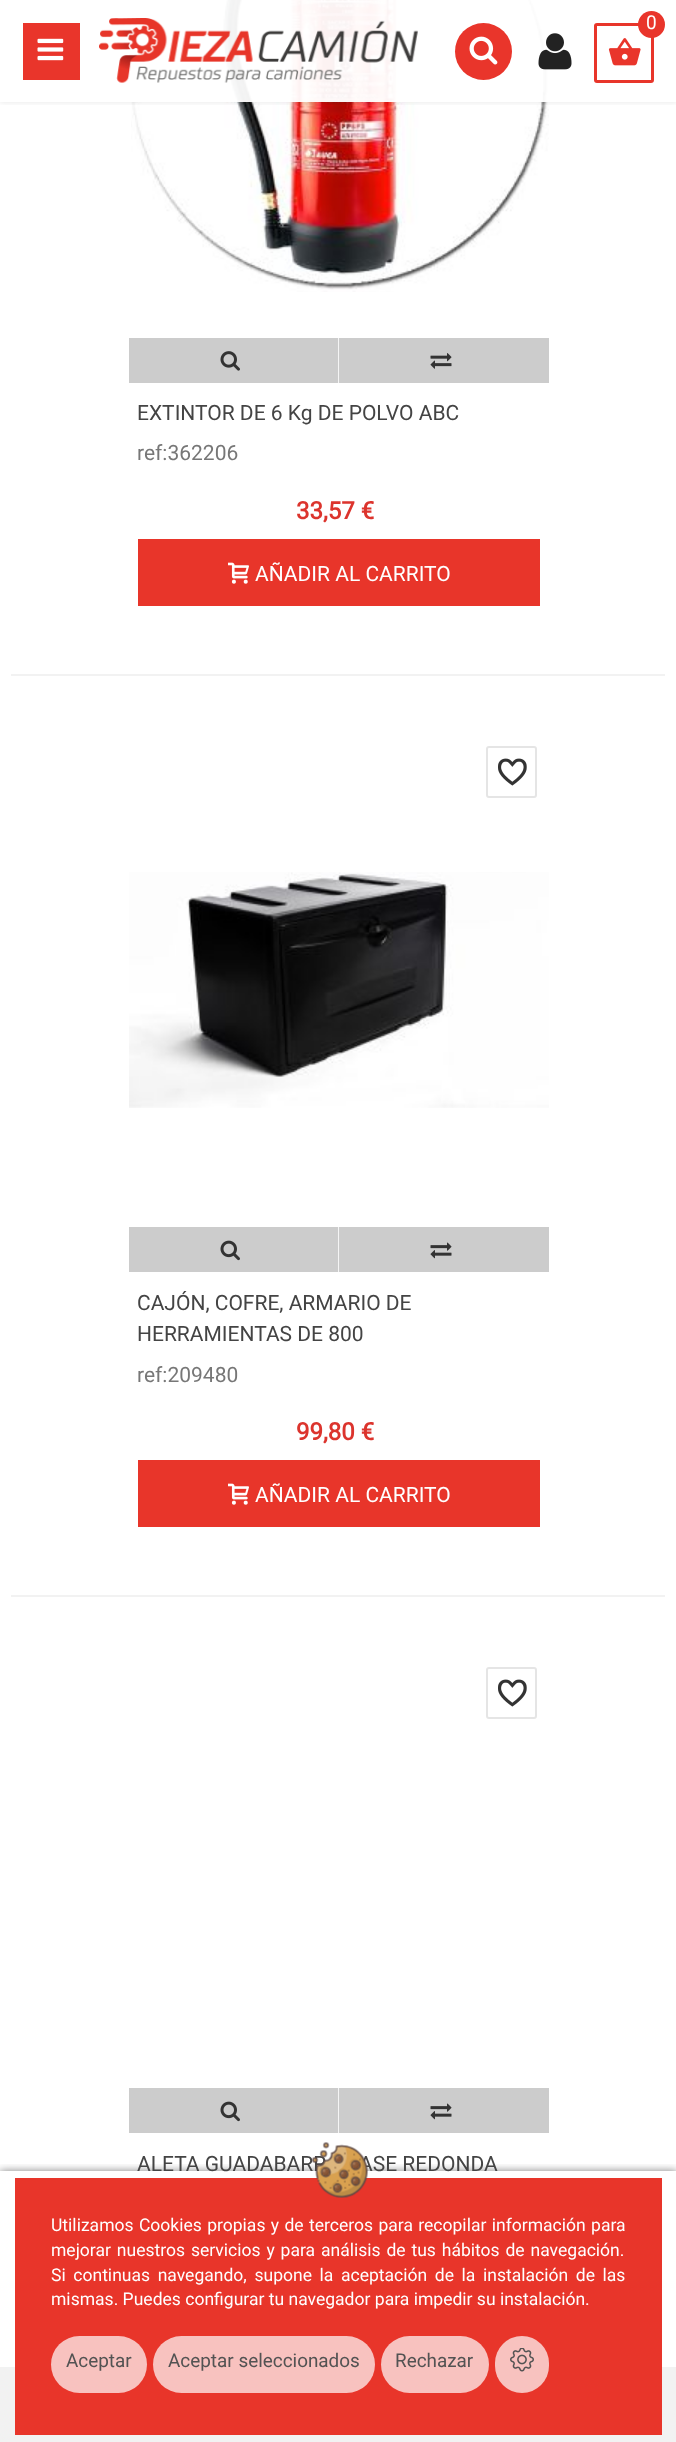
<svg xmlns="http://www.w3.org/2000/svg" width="676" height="2442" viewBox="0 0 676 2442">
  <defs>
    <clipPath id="clip1"><path d="M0 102h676v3H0z"/></clipPath>
    <clipPath id="clip2"><path d="M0 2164h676v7H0z"/></clipPath>
  </defs>
  <rect width="100%" height="100%" fill="#fff"/>
  <image x="131" y="0" width="418" height="292" href="img/6.png"/>
  <g clip-path="url(#clip1)">
    <path d="M0 0h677v102H0z" fill="#0000001a" filter="blur(3px)"/>
  </g>
  <path d="M131 0h418v102H131z" fill="#fffffff2"/>
  <path d="M23 23h57v57H23z" fill="#e9352b"/>
  <image x="37" y="38" width="27" height="23" href="img/1.png"/>
  <image x="99" y="18" width="319" height="65" href="img/2.png"/>
  <circle cx="483.5" cy="51.5" r="28.5" fill="#e9352b"/>
  <image x="469" y="36" width="29" height="29" href="img/3.png"/>
  <image x="538" y="33" width="34" height="37" href="img/4.png"/>
  <rect x="595.5" y="24.5" width="57" height="57" rx="1.5" fill="none" stroke="#e8352a" stroke-width="3"/>
  <circle cx="651.5" cy="24.5" r="13.5" fill="#e9352b"/>
  <image x="608" y="38" width="33" height="28" href="img/5.png"/>
  <path d="M129 338h209v45H129z" fill="#ccc"/>
  <path d="M338 338h1v45H338z" fill="#f5f5f5"/>
  <image x="220" y="351" width="20" height="20" href="img/7.png"/>
  <path d="M339 338h210v45H339z" fill="#ccc"/>
  <image x="430" y="353" width="22" height="16" href="img/8.png"/>
  <path d="M138 539h402v67H138z" fill="#e8352a"/>
  <image x="228" y="562" width="21" height="22" href="img/9.png"/>
  <path d="M11 674h654v2H11z" fill="#f2f2f2"/>
  <rect x="487" y="747" width="49" height="50" rx="2" fill="none" stroke="#e5e5e5" stroke-width="2"/>
  <image x="498" y="758" width="29" height="28" href="img/10.png"/>
  <image x="129" y="872" width="420" height="236" href="img/11.png"/>
  <path d="M129 1227h209v45H129z" fill="#ccc"/>
  <path d="M338 1227h1v45H338z" fill="#f5f5f5"/>
  <image x="220" y="1240" width="20" height="21" href="img/12.png"/>
  <path d="M339 1227h210v45H339z" fill="#ccc"/>
  <image x="430" y="1242" width="22" height="17" href="img/13.png"/>
  <path d="M138 1460h402v67H138z" fill="#e8352a"/>
  <image x="228" y="1483" width="21" height="22" href="img/9.png"/>
  <path d="M11 1595h654v2H11z" fill="#f2f2f2"/>
  <rect x="487" y="1668" width="49" height="50" rx="2" fill="none" stroke="#e5e5e5" stroke-width="2"/>
  <image x="498" y="1679" width="29" height="28" href="img/10.png"/>
  <path d="M129 2088h209v45H129z" fill="#ccc"/>
  <path d="M338 2088h1v45H338z" fill="#f5f5f5"/>
  <image x="220" y="2101" width="20" height="21" href="img/12.png"/>
  <path d="M339 2088h210v45H339z" fill="#ccc"/>
  <image x="430" y="2103" width="22" height="17" href="img/13.png"/>
  <path d="M0 2367h676v75H0z" fill="#f2f2f2"/>
  <g clip-path="url(#clip2)">
    <path d="M0 2171h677v271H0z" fill="#00000080" filter="blur(4px)"/>
  </g>
  <path d="M15 2178h647v257H15z" fill="#e8352a"/>
  <rect x="51" y="2336" width="96" height="57" rx="28.5" fill="#f8c2bf"/>
  <rect x="153" y="2336" width="222" height="57" rx="28.5" fill="#f8c2bf"/>
  <rect x="381" y="2336" width="108" height="57" rx="28.5" fill="#f8c2bf"/>
  <rect x="495" y="2336" width="54" height="57" rx="27" fill="#f8c2bf"/>
  <image x="510" y="2348" width="24" height="24" href="img/15.png"/>
  <text x="646" y="29" font-family="Roboto" font-size="19" fill="#fff">0</text>
  <text x="137" y="420" font-family="Roboto" font-size="21" fill="#444">EXTINTOR DE 6 Kg DE POLVO ABC</text>
  <text x="137" y="460" font-family="Roboto" font-size="21" fill="#777">ref:362206</text>
  <text x="296" y="519" font-family="Roboto" font-size="24" font-weight="bold" fill="#dc342d">33,57 €</text>
  <text x="255" y="581" font-family="Roboto" font-size="21" fill="#fff">AÑADIR AL CARRITO</text>
  <g font-family="Roboto" font-size="21" fill="#444">
    <text x="137" y="1310">CAJÓN, COFRE, ARMARIO DE</text>
    <text x="137" y="1341">HERRAMIENTAS DE 800</text>
  </g>
  <text x="137" y="1382" font-family="Roboto" font-size="21" fill="#777">ref:209480</text>
  <text x="296" y="1440" font-family="Roboto" font-size="24" font-weight="bold" fill="#dc342d">99,80 €</text>
  <text x="255" y="1502" font-family="Roboto" font-size="21" fill="#fff">AÑADIR AL CARRITO</text>
  <g font-family="Roboto" font-size="21" fill="#444">
    <text x="137" y="2171">ALETA GUADABARR</text>
    <text x="359" y="2171">ASE REDONDA</text>
  </g>
  <image x="312" y="2142" width="56" height="56" href="img/14.png"/>
  <g font-family="Roboto" font-size="17.55" fill="#fff">
    <text x="51" y="2231" word-spacing="1">Utilizamos Cookies propias y de terceros para recopilar información para</text>
    <text x="51" y="2256" word-spacing="1.5">mejorar nuestros servicios y para análisis de tus hábitos de navegación.</text>
    <text x="51" y="2281" word-spacing="3.25">Si continuas navegando, supone la aceptación de la instalación de las</text>
    <text x="51" y="2305">mismas. Puedes configurar tu navegador para impedir su instalación.</text>
  </g>
  <g font-family="Roboto" font-size="18.9" fill="#535353">
    <text x="66" y="2367">Aceptar</text>
    <text x="168" y="2367">Aceptar seleccionados</text>
    <text x="395" y="2367">Rechazar</text>
  </g>
</svg>
